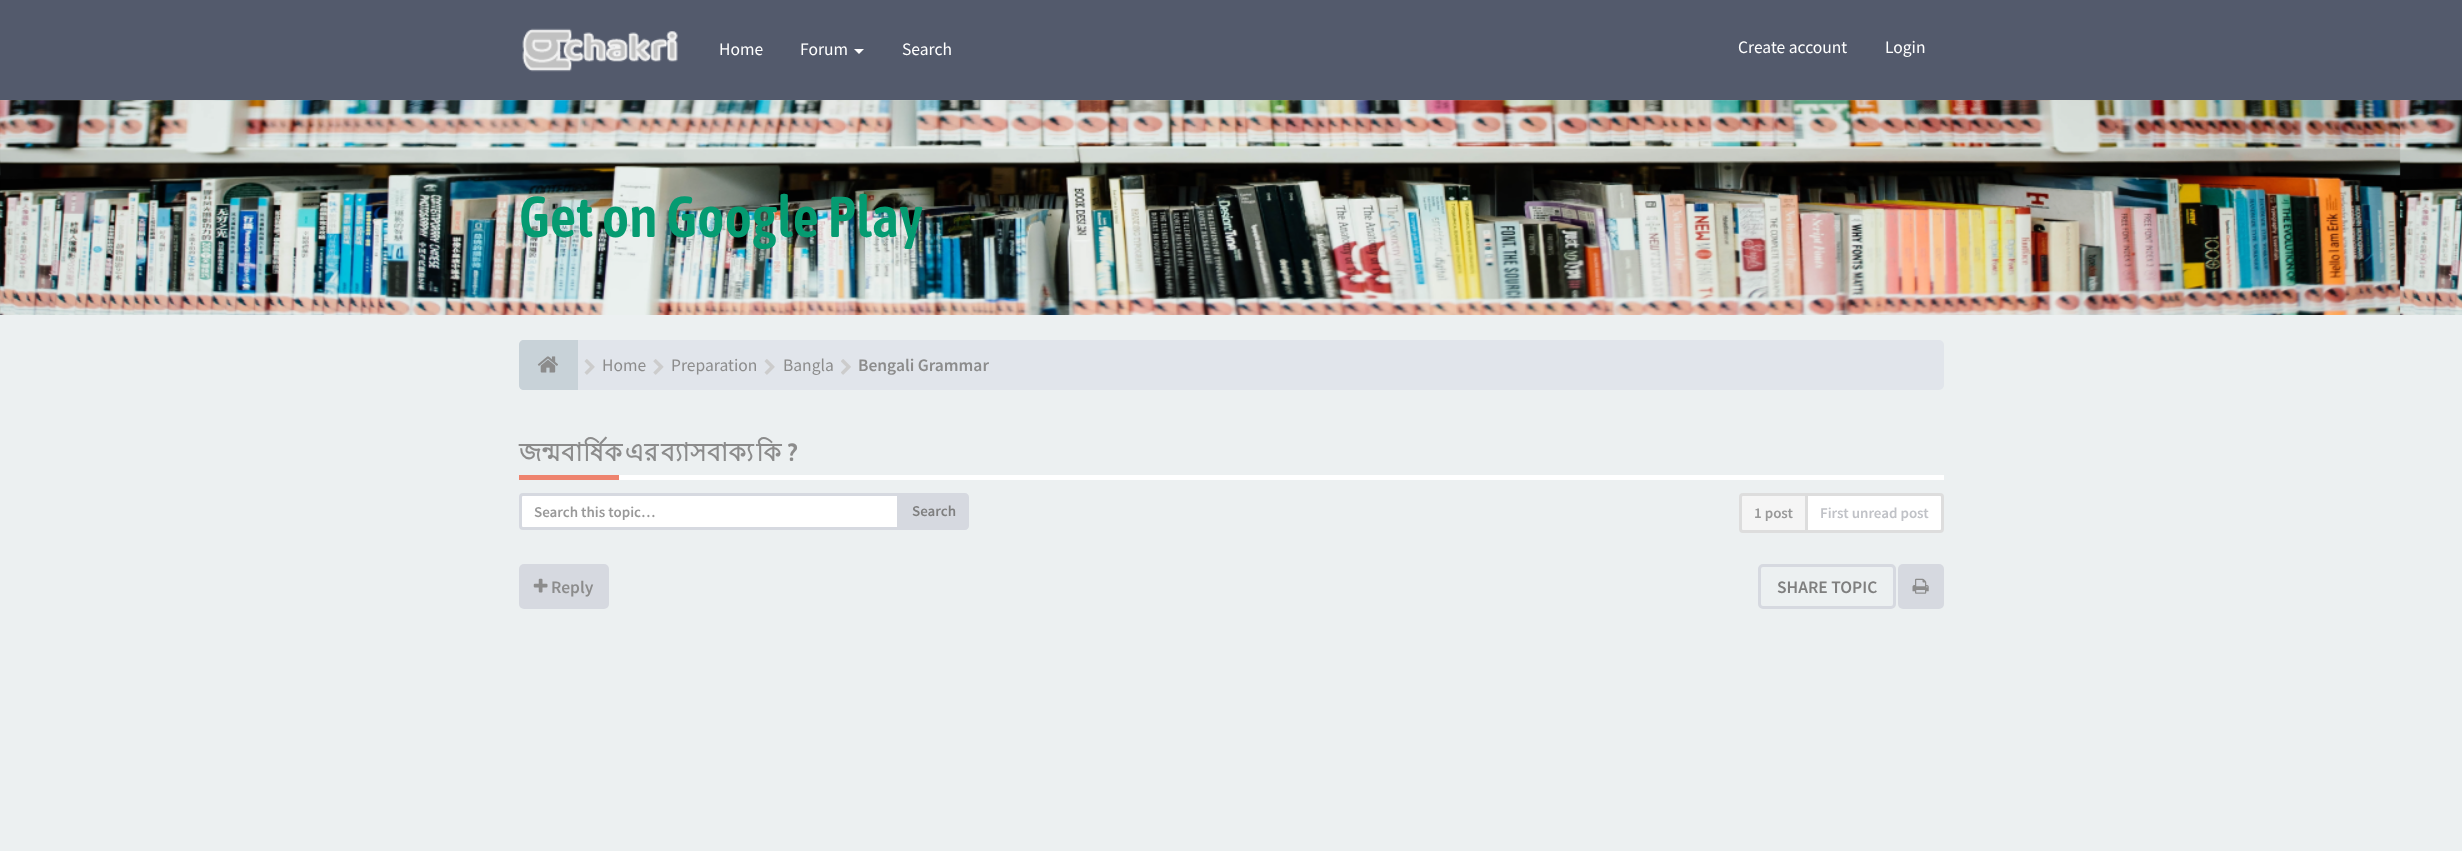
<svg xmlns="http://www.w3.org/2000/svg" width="2462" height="851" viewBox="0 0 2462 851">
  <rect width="100%" height="100%" fill="#ecf0f1"/>
  <path d="M0 0h2462v100H0z" fill="#535a6c"/>
  <image x="522" y="28" width="156" height="44" href="img/1.png"/>
  <path d="M854 49H864L859 54Z" fill="#fff"/>
  <image x="0" y="100" width="2462" height="215" href="img/2.png"/>
  <rect x="519" y="340" width="1425" height="50" rx="5" fill="#e1e5eb"/>
  <path d="M524 340H578V390H524C521 390 519 388 519 385V345C519 342 521 340 524 340Z" fill="#c8d2d8"/>
  <image x="537" y="356" width="21" height="17" href="img/3.png"/>
  <image x="584" y="359" width="11" height="16" href="img/4.png"/>
  <image x="653" y="359" width="11" height="16" href="img/5.png"/>
  <image x="764" y="359" width="11" height="16" href="img/4.png"/>
  <image x="841" y="359" width="10" height="16" href="img/6.png"/>
  <path d="M619 475h1325v5H619z" fill="#fff"/>
  <path d="M519 475h100v5H519z" fill="#ee836e"/>
  <path d="M523 494.5H898.5V528.5H523C521.5 528.5 520.5 527.5 520.5 526V497C520.5 495.5 521.5 494.5 523 494.5Z" fill="#fff" stroke="#d6d9e0" stroke-width="3"/>
  <path d="M900 493H965C967 493 969 495 969 497V526C969 528 967 530 965 530H900Z" fill="#d6d9e0"/>
  <path d="M1806.5 494.5H1940C1941.5 494.5 1942.5 495.5 1942.5 497V529C1942.5 530.5 1941.5 531.5 1940 531.5H1806.5Z" fill="#fff" stroke="#ddd" stroke-width="3"/>
  <path d="M1743 494.5H1806.5V531.5H1743C1741.5 531.5 1740.5 530.5 1740.5 529V497C1740.5 495.5 1741.5 494.5 1743 494.5Z" fill="#f5f5f5" stroke="#ddd" stroke-width="3"/>
  <rect x="519" y="564" width="90" height="45" rx="5" fill="#d6d9e0"/>
  <image x="533" y="578" width="15" height="15" href="img/7.png"/>
  <rect x="1759.5" y="565.5" width="135" height="42" rx="3.5" fill="none" stroke="#d6d9e0" stroke-width="3"/>
  <rect x="1898" y="564" width="46" height="45" rx="5" fill="#d6d9e0"/>
  <image x="1912" y="578" width="17" height="16" href="img/8.png"/>
  <g font-family="Source Sans Pro" font-size="17.5" fill="#fff">
    <text x="719" y="55">Home</text>
    <text x="800" y="55">Forum</text>
    <text x="902" y="55">Search</text>
    <text x="1738" y="53">Create account</text>
    <text x="1885" y="53">Login</text>
  </g>
  <text x="519" y="237" font-family="Asap Condensed" font-size="57.5" font-weight="600" letter-spacing="0.5" fill="#059b71">Get on Google Play</text>
  <g font-family="Source Sans Pro" font-size="17.5" fill="#8c8c8c">
    <text x="602" y="371">Home</text>
    <text x="671" y="371">Preparation</text>
    <text x="783" y="371">Bangla</text>
  </g>
  <text x="858" y="371" font-family="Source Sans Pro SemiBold" font-size="17.5" font-weight="600" fill="#8c8c8c">Bengali Grammar</text>
  <text x="519" y="461" word-spacing="-5" font-family="Lohit Bengali" font-size="25" font-weight="bold" letter-spacing="0.5" fill="#8c8c8c">জন্মবার্ষিক এর ব্যাসবাক্য কি</text>
  <text x="788" y="461" font-family="Asap Condensed" font-size="25" font-weight="600" letter-spacing="0.5" fill="#8c8c8c">?</text>
  <text x="534" y="517" font-family="Source Sans Pro SemiBold" font-size="15" font-weight="600" fill="#999">Search this topic…</text>
  <text x="912" y="516" font-family="Source Sans Pro SemiBold" font-size="15" font-weight="600" fill="#7f7f7f">Search</text>
  <text x="1754" y="518" font-family="Source Sans Pro SemiBold" font-size="15" font-weight="600" fill="#999">1 post</text>
  <text x="1820" y="518" font-family="Source Sans Pro SemiBold" font-size="15" font-weight="600" fill="#c0c2c7">First unread post</text>
  <text x="551" y="593" font-family="Source Sans Pro SemiBold" font-size="17.5" font-weight="600" fill="#8c8c8c">Reply</text>
  <text x="1777" y="593" font-family="Source Sans Pro SemiBold" font-size="17.5" font-weight="600" fill="#7f7f7f">SHARE TOPIC</text>
</svg>
